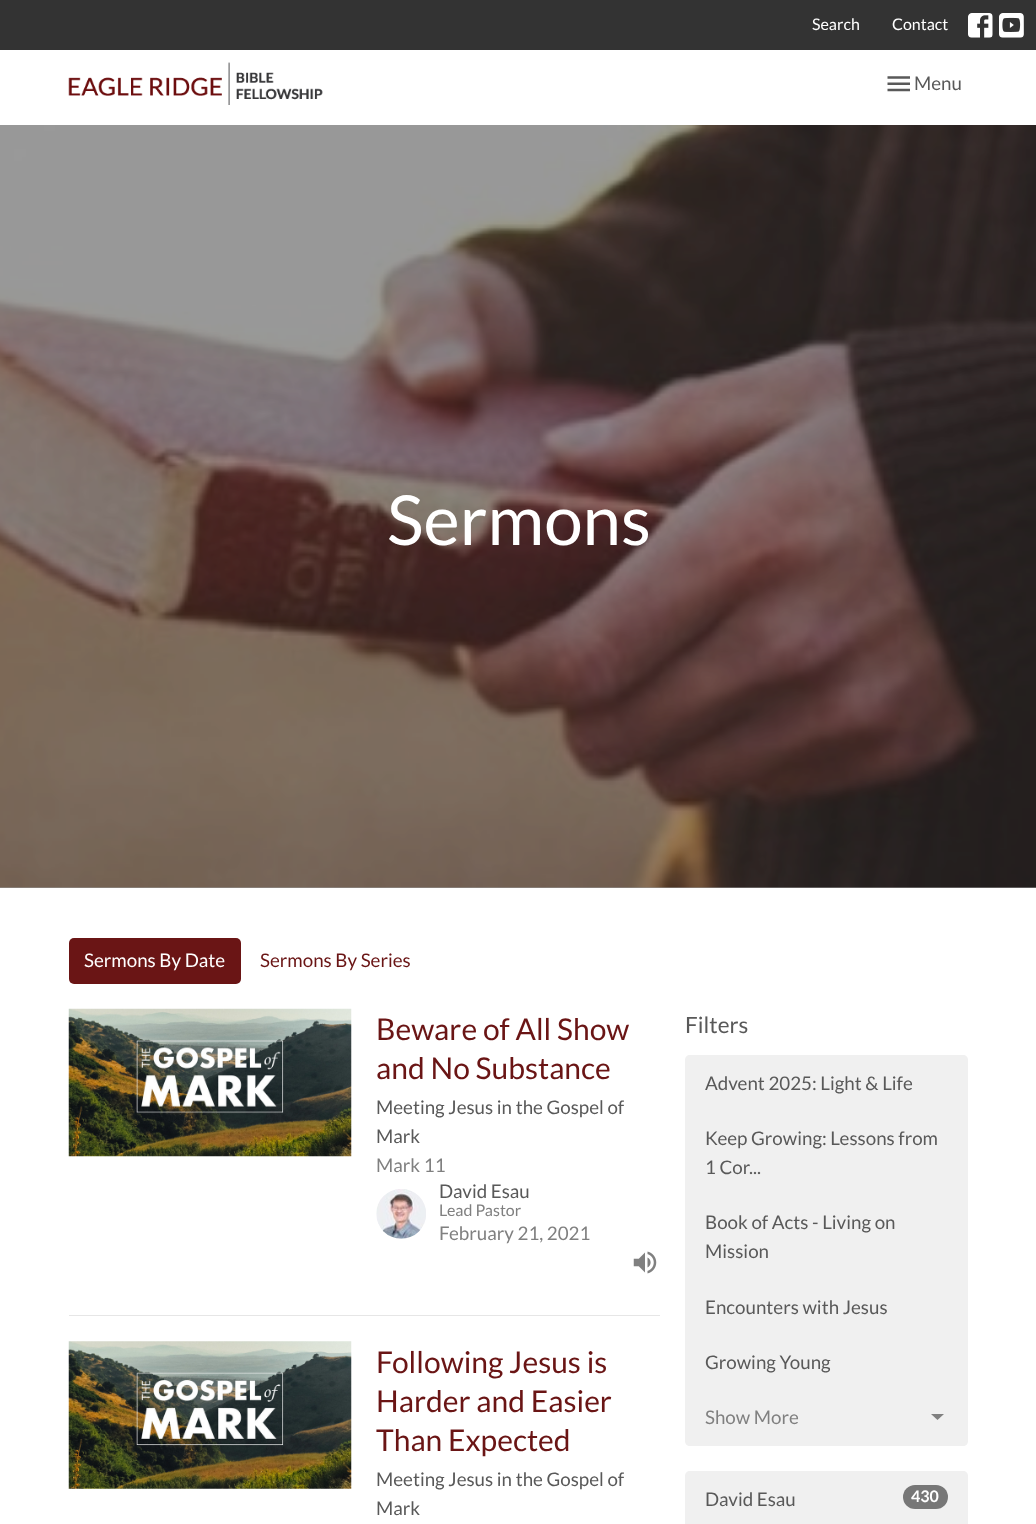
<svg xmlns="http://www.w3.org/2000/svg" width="1036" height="1524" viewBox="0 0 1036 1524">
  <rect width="100%" height="100%" fill="#fff"/>
  <path d="M0 887h1036v1H0z" fill="#999"/>
  <path d="M0 0h1036v50H0z" fill="#333"/>
  <image x="968" y="13" width="25" height="25" href="img/1.png"/>
  <image x="999" y="13" width="25" height="25" href="img/2.png"/>
  <image x="68" y="62" width="255" height="43" href="img/3.png"/>
  <image x="887" y="76" width="23" height="16" href="img/4.png"/>
  <image x="0" y="125" width="1036" height="763" href="img/5.png"/>
  <rect x="69" y="938" width="172" height="46" rx="5" fill="#6a1515"/>
  <path d="M69 1315h591v1H69z" fill="#e6e6e6"/>
  <image x="68" y="1008" width="284" height="149" href="img/6.png"/>
  <image x="376" y="1189" width="50" height="50" href="img/7.png"/>
  <image x="633" y="1251" width="24" height="23" href="img/8.png"/>
  <image x="68" y="1341" width="284" height="148" href="img/9.png"/>
  <path d="M690 1055H963C966 1055 968 1057 968 1060V1111H685V1060C685 1057 687 1055 690 1055Z" fill="#f0f0f0"/>
  <path d="M685 1111h283v278H685z" fill="#f0f0f0"/>
  <path d="M685 1389H968V1441C968 1444 966 1446 963 1446H690C687 1446 685 1444 685 1441Z" fill="#f0f0f0"/>
  <path d="M931 1414L937.5 1420L944 1414Z" fill="#808080"/>
  <path d="M690 1471H963C966 1471 968 1473 968 1476V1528H685V1476C685 1473 687 1471 690 1471Z" fill="#f0f0f0"/>
  <rect x="903" y="1485" width="45" height="24" rx="12" fill="#777"/>
  <g font-family="Lato" font-size="16" fill="#fff">
    <text x="812" y="30">Search</text>
    <text x="892" y="30">Contact</text>
  </g>
  <text x="914" y="90" font-family="Lato" font-size="18.75" fill="#595959">Menu</text>
  <text x="387" y="545" font-family="Lato" font-size="69" fill="#fff">Sermons</text>
  <text x="84" y="967" font-family="Lato" font-size="18.75" fill="#fff">Sermons By Date</text>
  <text x="260" y="967" font-family="Lato" font-size="18.75" fill="#6a1515">Sermons By Series</text>
  <g font-family="Lato" font-size="30" fill="#6a1515">
    <text x="376" y="1040">Beware of All Show</text>
    <text x="376" y="1079">and No Substance</text>
  </g>
  <g font-family="Lato" font-size="18.75" fill="#595959">
    <text x="376" y="1114">Meeting Jesus in the Gospel of</text>
    <text x="376" y="1143">Mark</text>
  </g>
  <text x="376" y="1172" font-family="Lato" font-size="18.75" fill="#808080">Mark 11</text>
  <text x="439" y="1198" font-family="Lato" font-size="18.75" fill="#595959">David Esau</text>
  <text x="439" y="1216" font-family="Lato" font-size="16" fill="#808080">Lead Pastor</text>
  <text x="439" y="1240" font-family="Lato" font-size="18.75" fill="#808080">February 21, 2021</text>
  <g font-family="Lato" font-size="30" fill="#6a1515">
    <text x="376" y="1373">Following Jesus is</text>
    <text x="376" y="1412">Harder and Easier</text>
    <text x="376" y="1451">Than Expected</text>
  </g>
  <g font-family="Lato" font-size="18.75" fill="#595959">
    <text x="376" y="1486">Meeting Jesus in the Gospel of</text>
    <text x="376" y="1515">Mark</text>
  </g>
  <text x="685" y="1033" font-family="Lato" font-size="22.5" fill="#595959">Filters</text>
  <g font-family="Lato" font-size="18.75" fill="#595959">
    <text x="705" y="1090">Advent 2025: Light &amp; Life</text>
    <text x="705" y="1145">Keep Growing: Lessons from</text>
    <text x="705" y="1174">1 Cor...</text>
    <text x="705" y="1229">Book of Acts - Living on</text>
    <text x="705" y="1258">Mission</text>
    <text x="705" y="1314">Encounters with Jesus</text>
    <text x="705" y="1369">Growing Young</text>
  </g>
  <text x="705" y="1424" font-family="Lato" font-size="18.75" fill="#808080">Show More</text>
  <text x="705" y="1506" font-family="Lato" font-size="18.75" fill="#595959">David Esau</text>
  <text x="911" y="1502" font-family="Lato" font-size="16" font-weight="bold" fill="#fff">430</text>
</svg>
